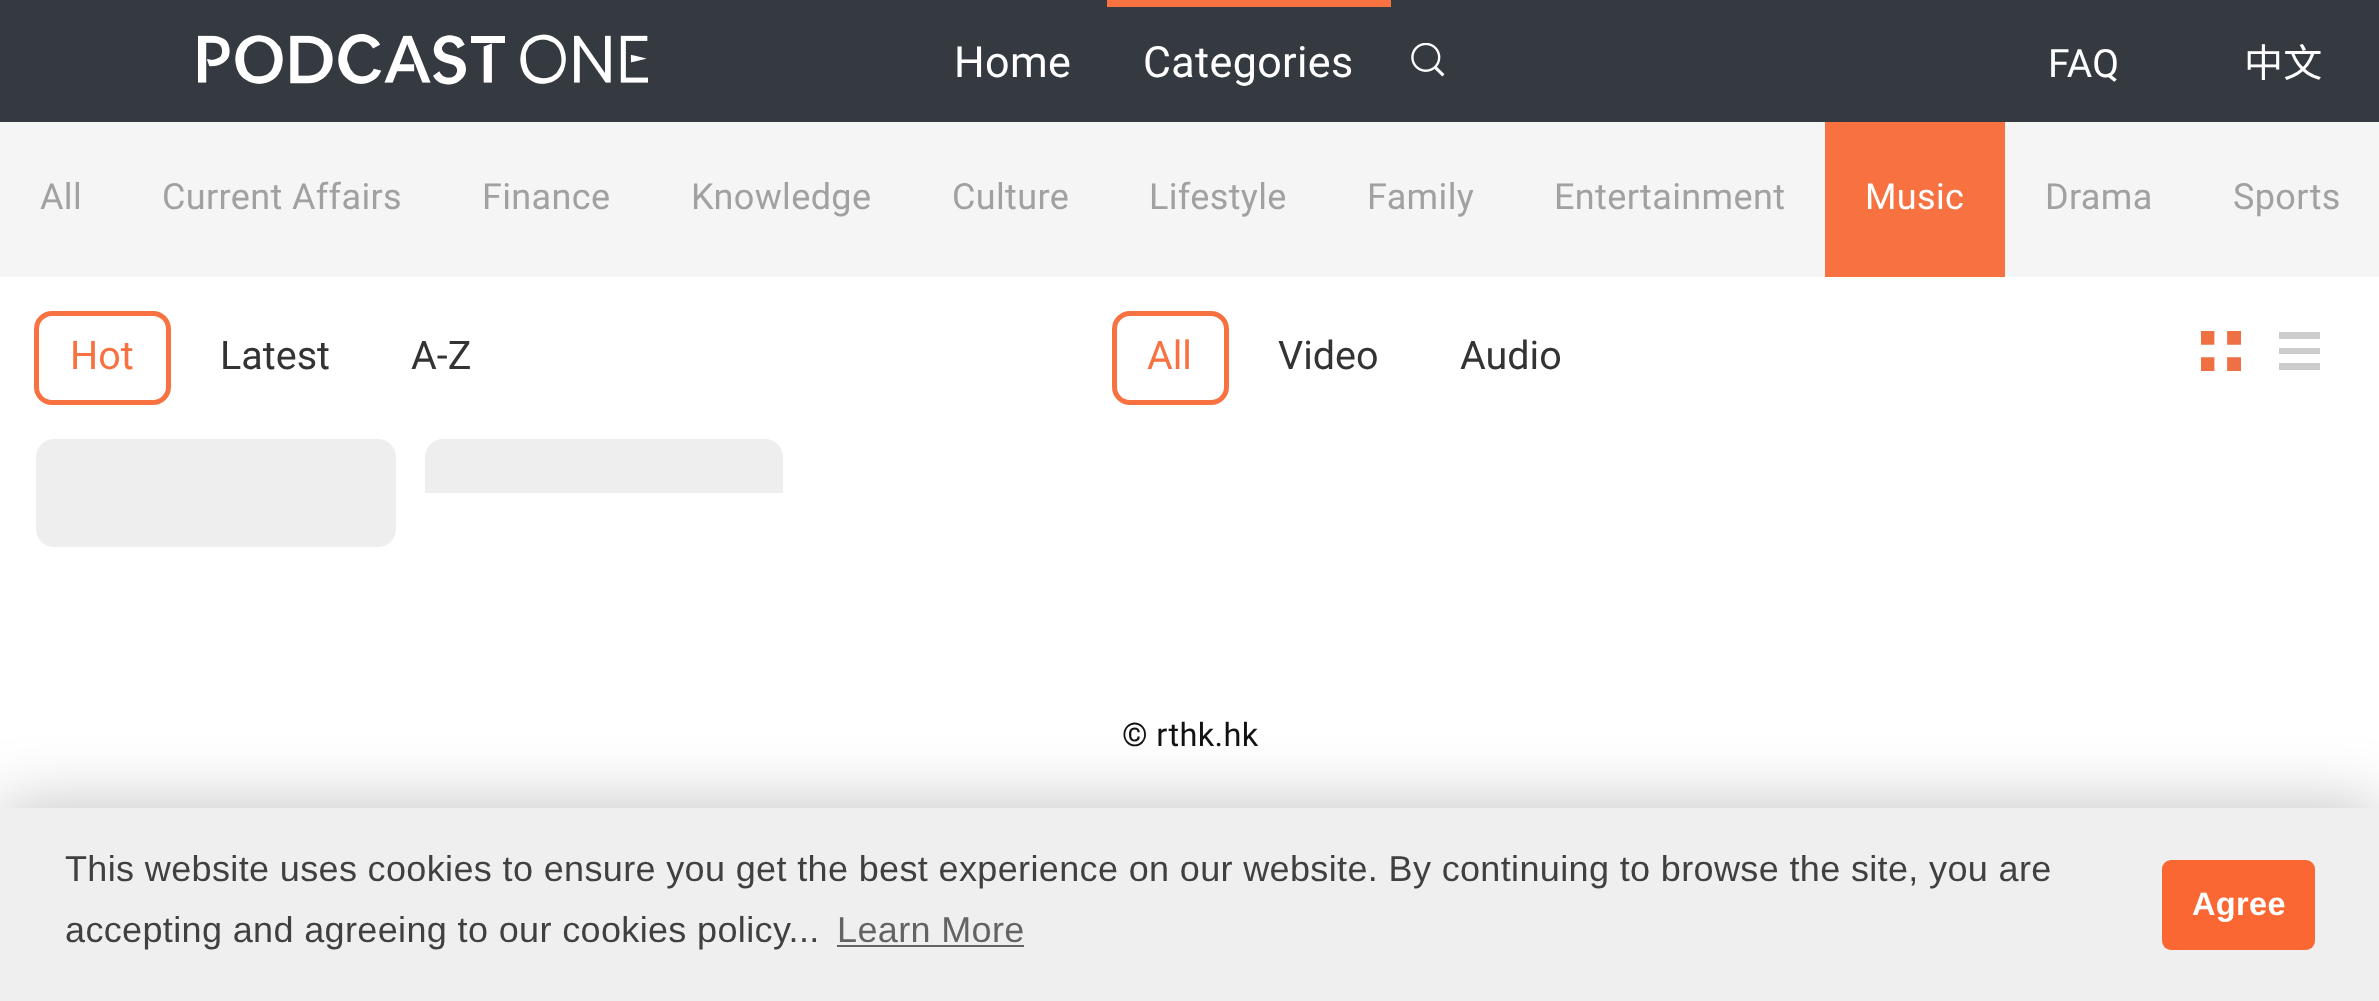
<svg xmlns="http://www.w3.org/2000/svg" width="2379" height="1001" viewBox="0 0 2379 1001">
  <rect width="100%" height="100%" fill="#fff"/>
  <path d="M0 0h2379v122H0z" fill="#343a40"/>
  <image x="198" y="34" width="450" height="51" href="img/1.png"/>
  <path d="M1107 0h284v7H1107z" fill="#f77141"/>
  <image x="1411" y="43" width="34" height="34" href="img/2.png"/>
  <path d="M0 122h2379v155H0z" fill="#f5f5f5"/>
  <path d="M1825 122h180v155H1825z" fill="#f77141"/>
  <rect x="36.5" y="313.5" width="132" height="89" rx="15.5" fill="none" stroke="#f77141" stroke-width="5"/>
  <rect x="1114.5" y="313.5" width="112" height="89" rx="15.5" fill="none" stroke="#f77141" stroke-width="5"/>
  <image x="2201" y="331" width="40" height="40" href="img/3.png"/>
  <path d="M2279 332V339H2320V332ZM2279 354H2320V348H2279ZM2279 370H2320V363H2279Z" fill="#cdcccc"/>
  <rect x="36" y="439" width="360" height="108" rx="18" fill="#eee"/>
  <path d="M443 439H765C775 439 783 447 783 457V493H425V457C425 447 433 439 443 439Z" fill="#eee"/>
  <path d="M0 808h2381v193H0z" fill="#00000040" filter="blur(34px)"/>
  <path d="M0 808h2379v193H0z" fill="#efefef"/>
  <path d="M837 945h187v2H837z" fill="#636363"/>
  <rect x="2162" y="860" width="153" height="90" rx="9" fill="#fa6732"/>
  <g font-family="Roboto" font-size="43" letter-spacing="0.36" fill="#fff">
    <text x="954" y="77">Home</text>
    <text x="1143" y="77">Categories</text>
  </g>
  <text x="2048" y="77" font-family="Roboto" font-size="39" letter-spacing="0.36" fill="#fff">FAQ</text>
  <text x="2244" y="77" font-family="Noto Sans TC" font-size="39" letter-spacing="0.36" fill="#fff">中文</text>
  <g font-family="Roboto" font-size="36" letter-spacing="0.36" fill="#a1a1a1">
    <text x="40" y="209">All</text>
    <text x="162" y="209">Current Affairs</text>
    <text x="482" y="209">Finance</text>
    <text x="691" y="209">Knowledge</text>
    <text x="952" y="209">Culture</text>
    <text x="1149" y="209">Lifestyle</text>
    <text x="1367" y="209">Family</text>
    <text x="1554" y="209">Entertainment</text>
  </g>
  <text x="1865" y="209" font-family="Roboto" font-size="36" letter-spacing="0.36" fill="#fff">Music</text>
  <g font-family="Roboto" font-size="36" letter-spacing="0.36" fill="#a1a1a1">
    <text x="2045" y="209">Drama</text>
    <text x="2233" y="209">Sports</text>
  </g>
  <text x="70" y="369" font-family="Roboto" font-size="39.5" fill="#f77141">Hot</text>
  <g font-family="Roboto" font-size="39.5" fill="#333">
    <text x="220" y="369">Latest</text>
    <text x="411" y="369">A-Z</text>
  </g>
  <text x="1147" y="369" font-family="Roboto" font-size="39.5" fill="#f77141">All</text>
  <g font-family="Roboto" font-size="39.5" fill="#333">
    <text x="1278" y="369">Video</text>
    <text x="1460" y="369">Audio</text>
  </g>
  <text x="1122" y="746" font-family="Roboto" font-size="32.5" letter-spacing="0.36" fill="#121212">© rthk.hk</text>
  <g font-family="Liberation Sans" font-size="36" letter-spacing="0.36" fill="#404040">
    <text x="65" y="881">This website uses cookies to ensure you get the best experience on our website. By continuing to browse the site, you are</text>
    <text x="65" y="942">accepting and agreeing to our cookies policy...</text>
  </g>
  <text x="837" y="942" font-family="Liberation Sans" font-size="36" letter-spacing="0.36" fill="#636363">Learn More</text>
  <text x="2192" y="915" font-family="Liberation Sans" font-size="32.5" font-weight="bold" letter-spacing="0.36" fill="#fff">Agree</text>
</svg>
